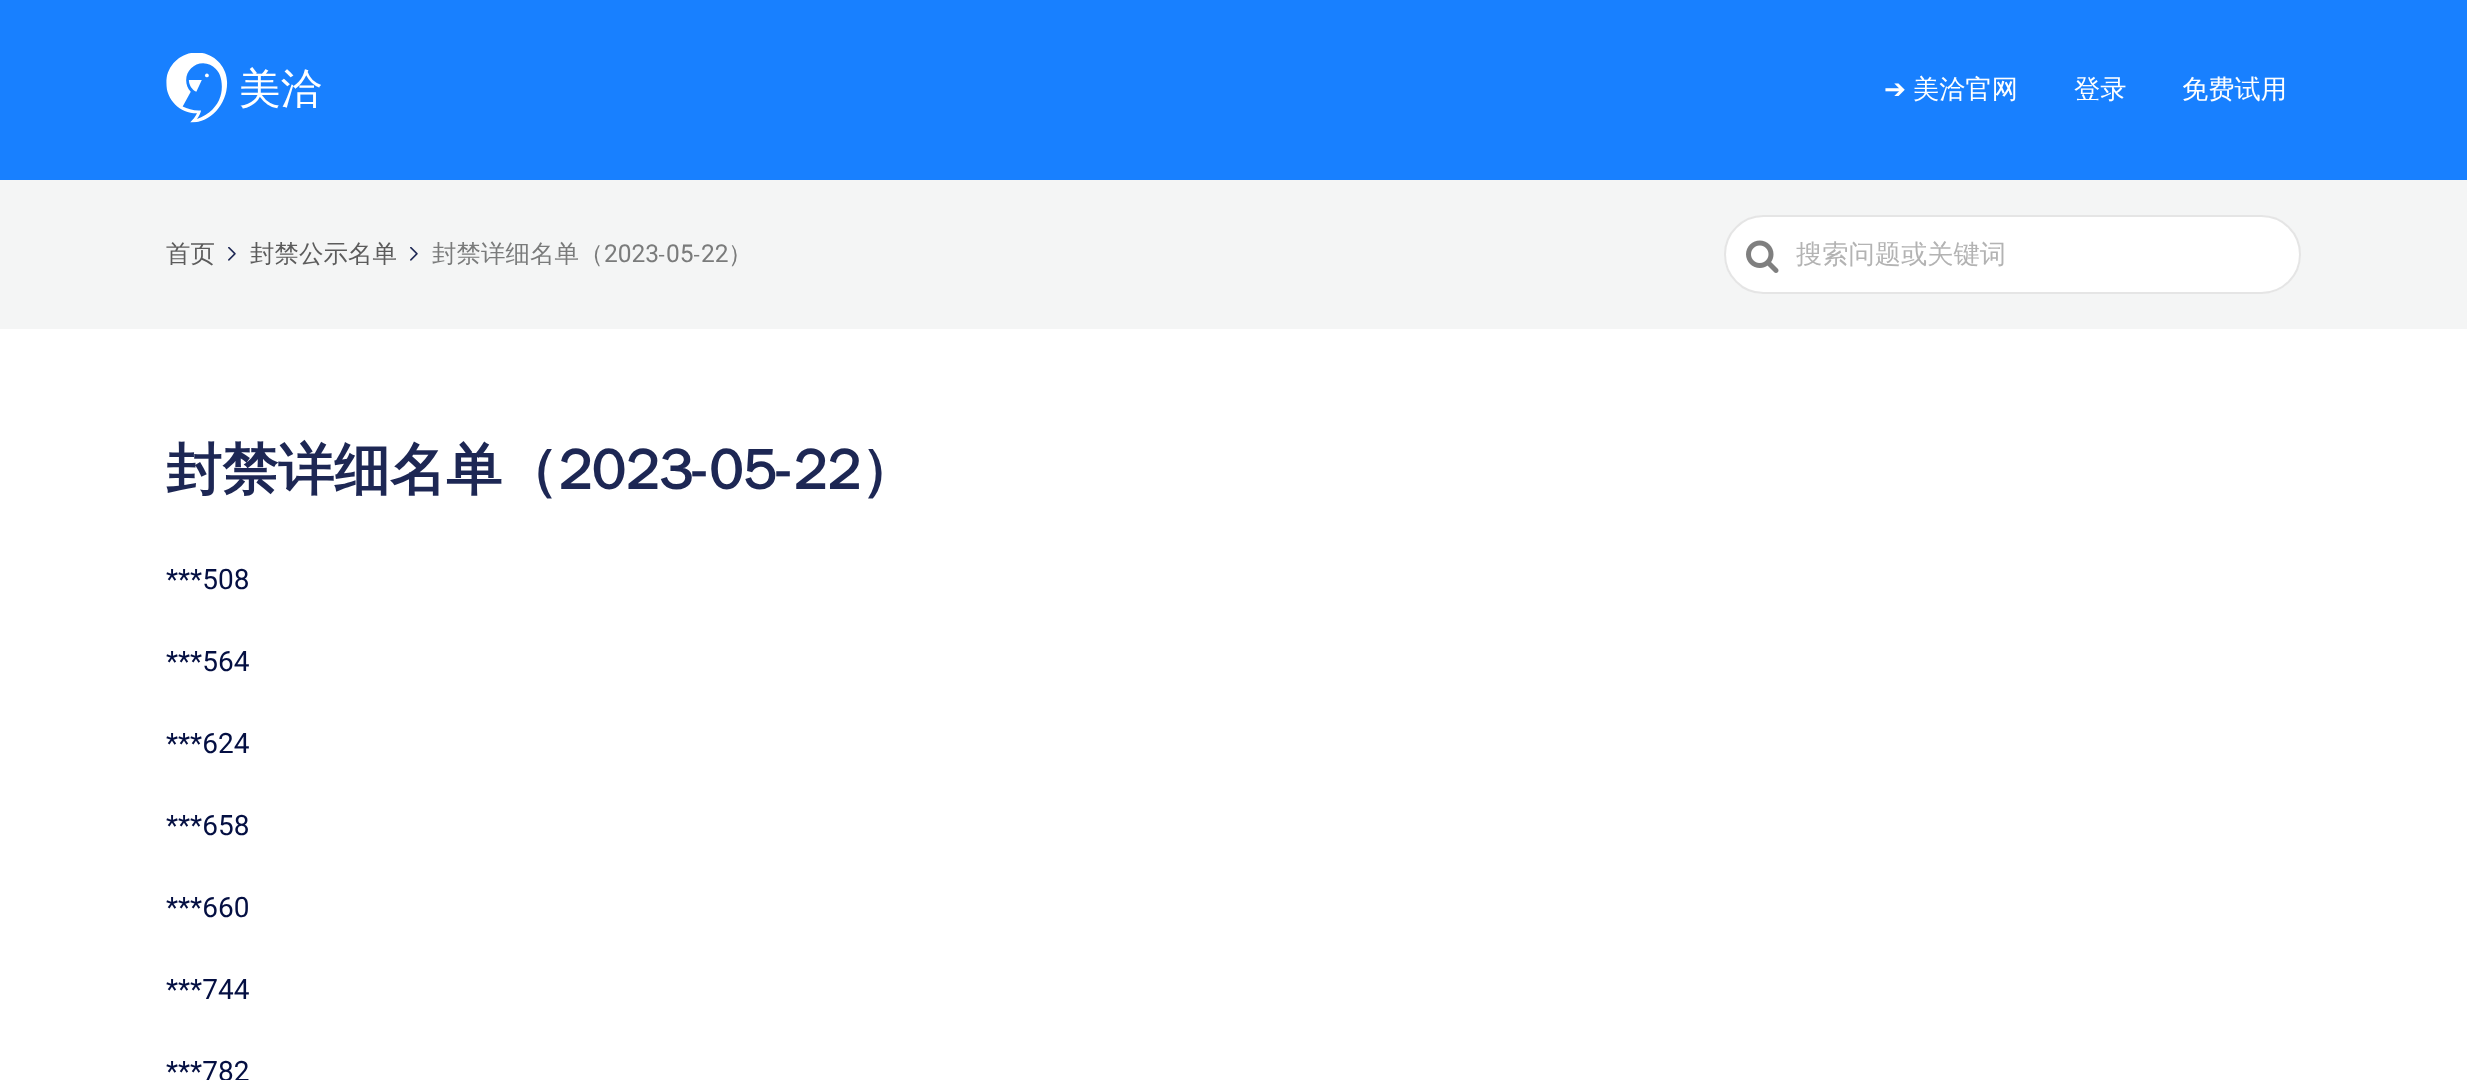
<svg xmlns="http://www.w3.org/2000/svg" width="2467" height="1080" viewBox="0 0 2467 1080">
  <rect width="100%" height="100%" fill="#fff"/>
  <path d="M0 0h2467v180H0z" fill="#1880ff"/>
  <image x="166" y="53" width="155" height="70" href="img/1.png"/>
  <path d="M0 180h2467v149H0z" fill="#f4f5f5"/>
  <image x="228" y="247" width="8" height="14" href="img/2.png"/>
  <image x="410" y="247" width="8" height="14" href="img/2.png"/>
  <rect x="1724" y="215" width="577" height="79" rx="39.5" fill="#fff"/>
  <rect x="1725" y="216" width="575" height="77" rx="38.5" fill="none" stroke="#cccccc80" stroke-width="2"/>
  <image x="1746" y="240" width="33" height="33" href="img/3.png"/>
  <text x="1884" y="98" font-family="DejaVu Sans" font-size="26.25" fill="#fff">➔</text>
  <g font-family="WenQuanYi Zen Hei" font-size="26.25" font-weight="500" fill="#fff">
    <text x="1913" y="98">美洽官网</text>
    <text x="2074" y="98">登录</text>
    <text x="2182" y="98">免费试用</text>
  </g>
  <g font-family="WenQuanYi Zen Hei" font-size="24.5" font-weight="500" fill="#5c5c5c">
    <text x="166" y="262">首页</text>
    <text x="250" y="262">封禁公示名单</text>
  </g>
  <text x="432" y="262" font-family="WenQuanYi Zen Hei" font-size="24.5" font-weight="500" fill="#7a7b7b">封禁详细名单（</text>
  <text x="604" y="262" font-family="Roboto" font-size="24.5" fill="#7a7b7b">2023</text>
  <text x="659" y="262" font-family="WenQuanYi Zen Hei" font-size="24.5" font-weight="500" fill="#7a7b7b">-</text>
  <text x="666" y="262" font-family="Roboto" font-size="24.5" fill="#7a7b7b">05</text>
  <text x="694" y="262" font-family="WenQuanYi Zen Hei" font-size="24.5" font-weight="500" fill="#7a7b7b">-</text>
  <text x="701" y="262" font-family="Roboto" font-size="24.5" fill="#7a7b7b">22</text>
  <text x="728" y="262" font-family="WenQuanYi Zen Hei" font-size="24.5" font-weight="500" fill="#7a7b7b">）</text>
  <text x="1796" y="263" font-family="WenQuanYi Zen Hei" font-size="26.25" font-weight="500" fill="#b3b3b3">搜索问题或关键词</text>
  <text x="166" y="489" font-family="WenQuanYi Zen Hei" font-size="56" font-weight="bold" fill="#1d2754">封禁详细名单（2023-05-22）</text>
  <g font-family="Roboto" font-size="28" fill="#040f42">
    <text x="166" y="589">***508</text>
    <text x="166" y="671">***564</text>
    <text x="166" y="753">***624</text>
    <text x="166" y="835">***658</text>
    <text x="166" y="917">***660</text>
    <text x="166" y="999">***744</text>
    <text x="166" y="1081">***782</text>
  </g>
</svg>
